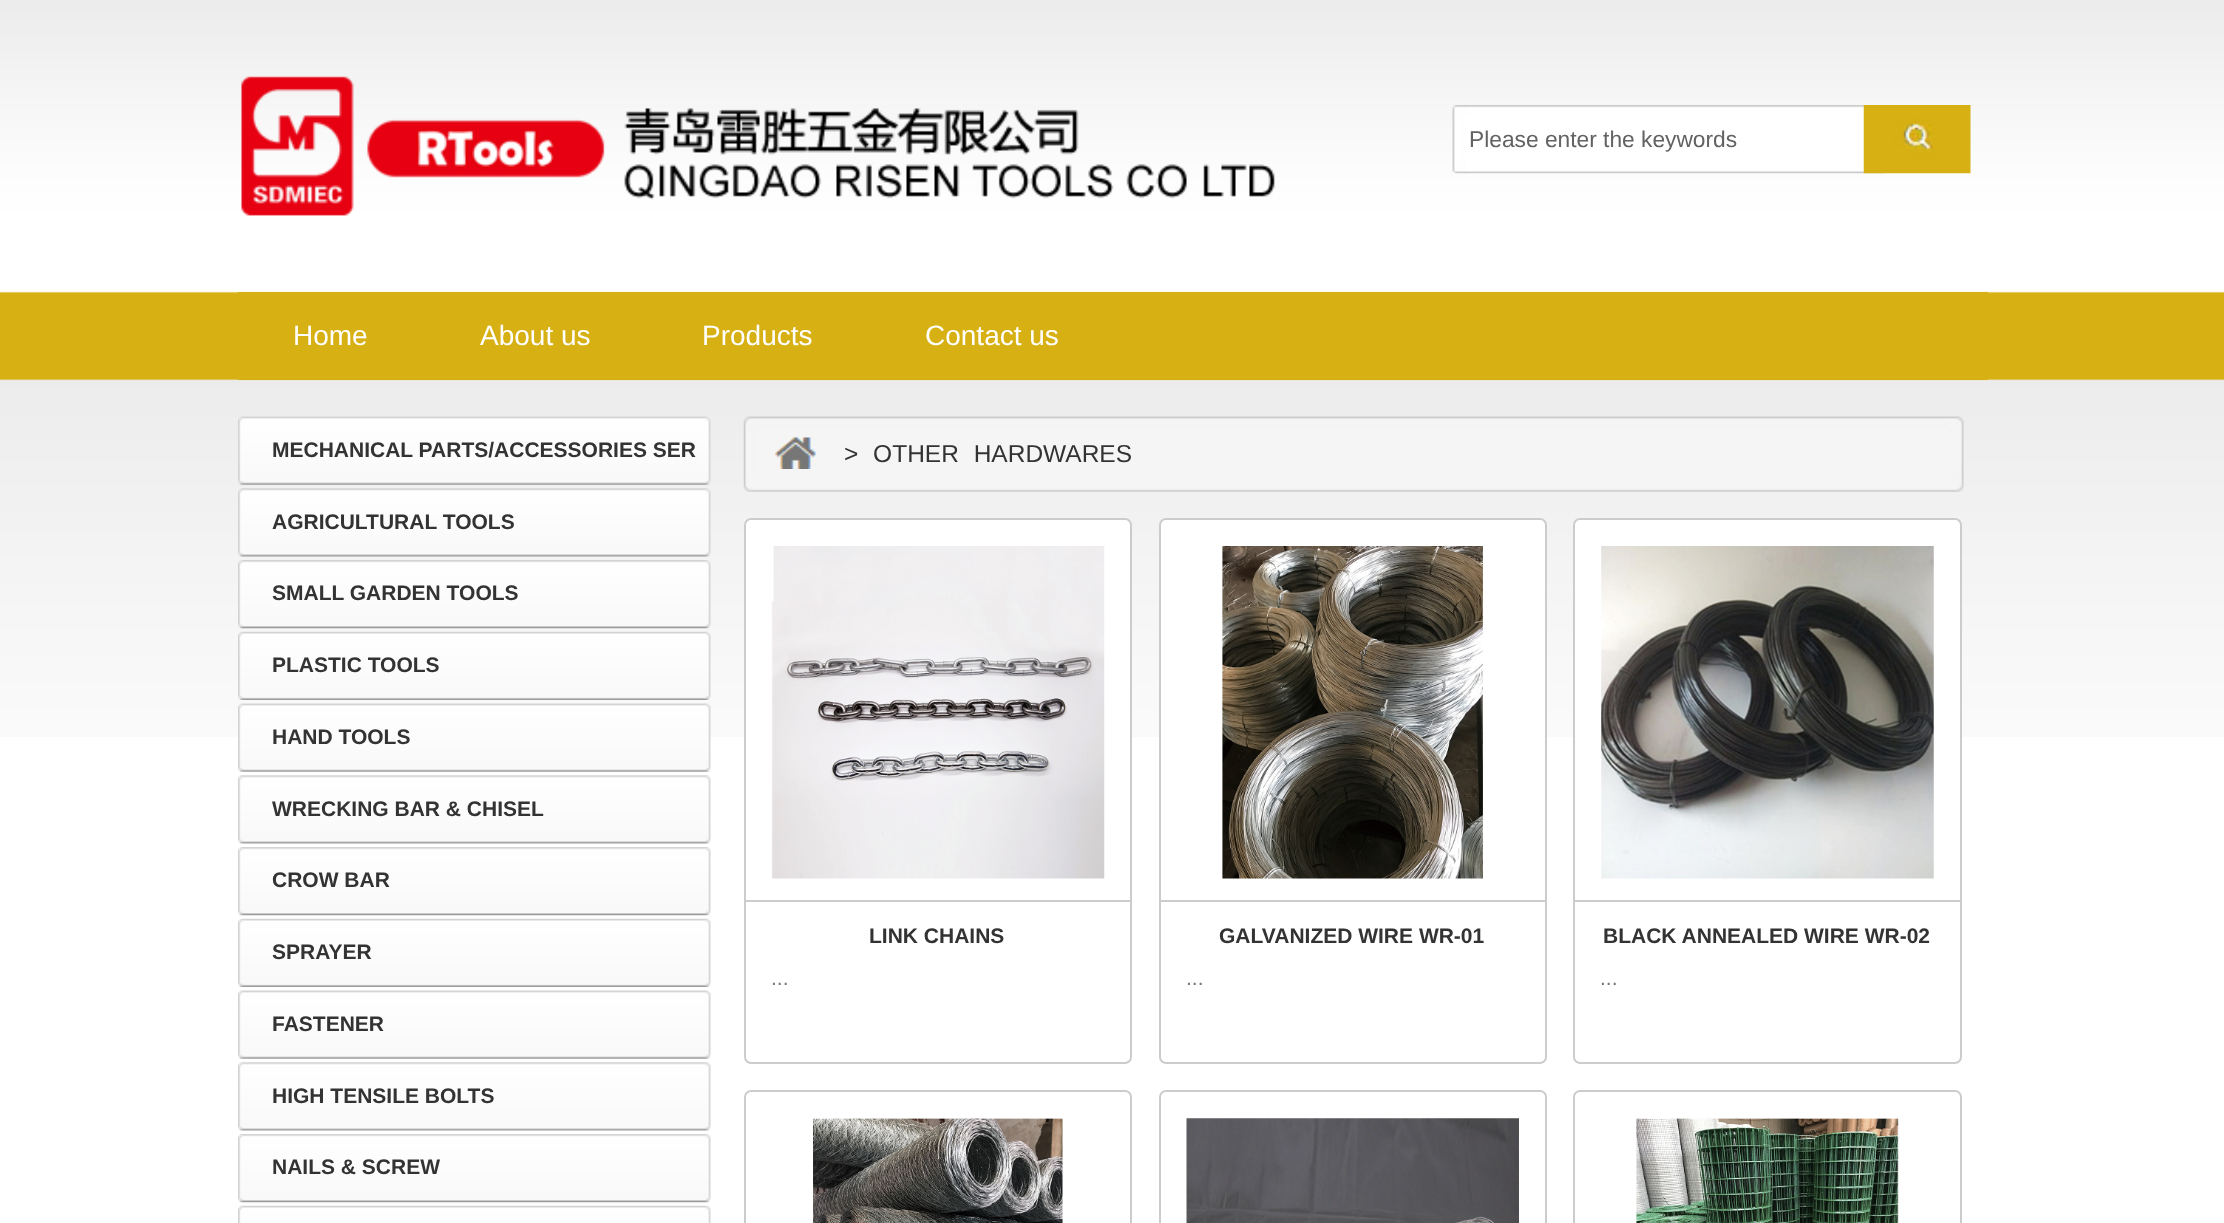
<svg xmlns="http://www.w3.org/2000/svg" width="2224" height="1223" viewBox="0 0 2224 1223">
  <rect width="100%" height="100%" fill="#fff"/>
  <image x="0" y="0" width="2224" height="737" href="img/1.png"/>
  <image x="241" y="76" width="1034" height="140" href="img/2.png"/>
  <image x="1452" y="105" width="433" height="69" href="img/3.png"/>
  <image x="1863" y="105" width="108" height="69" href="img/4.png"/>
  <path d="M238 292h1750v88H238z" fill="#d7b013"/>
  <image x="238" y="416" width="473" height="69" href="img/5.png"/>
  <image x="238" y="488" width="473" height="69" href="img/6.png"/>
  <image x="238" y="560" width="473" height="69" href="img/7.png"/>
  <image x="238" y="631" width="473" height="69" href="img/8.png"/>
  <image x="238" y="703" width="473" height="69" href="img/9.png"/>
  <image x="238" y="775" width="473" height="69" href="img/10.png"/>
  <image x="238" y="847" width="473" height="69" href="img/11.png"/>
  <image x="238" y="918" width="473" height="69" href="img/12.png"/>
  <image x="238" y="990" width="473" height="69" href="img/13.png"/>
  <image x="238" y="1062" width="473" height="69" href="img/10.png"/>
  <image x="238" y="1134" width="473" height="69" href="img/11.png"/>
  <image x="238" y="1205" width="473" height="18" href="img/14.png"/>
  <image x="743" y="416" width="1221" height="76" href="img/15.png"/>
  <image x="775" y="437" width="41" height="32" href="img/16.png"/>
  <rect x="745" y="519" width="386" height="544" rx="6" fill="#fff" stroke="#ccc" stroke-width="2"/>
  <image x="771" y="546" width="334" height="333" href="img/17.png"/>
  <path d="M746 900h385v2H746z" fill="#ccc"/>
  <rect x="1160" y="519" width="386" height="544" rx="6" fill="#fff" stroke="#ccc" stroke-width="2"/>
  <image x="1222" y="546" width="261" height="333" href="img/18.png"/>
  <path d="M1160 900h385v2H1160z" fill="#ccc"/>
  <rect x="1574" y="519" width="387" height="544" rx="6" fill="#fff" stroke="#ccc" stroke-width="2"/>
  <image x="1601" y="546" width="333" height="333" href="img/19.png"/>
  <path d="M1575 900h385v2H1575z" fill="#ccc"/>
  <rect x="745" y="1091" width="386" height="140" rx="6" fill="none" stroke="#ccc" stroke-width="2"/>
  <image x="813" y="1118" width="250" height="105" href="img/20.png"/>
  <rect x="1160" y="1091" width="386" height="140" rx="6" fill="none" stroke="#ccc" stroke-width="2"/>
  <image x="1186" y="1118" width="333" height="105" href="img/21.png"/>
  <rect x="1574" y="1091" width="387" height="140" rx="6" fill="none" stroke="#ccc" stroke-width="2"/>
  <image x="1636" y="1118" width="263" height="105" href="img/22.png"/>
  <text x="1469" y="147" font-family="Liberation Sans" font-size="22.75" fill="#626262">Please enter the keywords</text>
  <g font-family="Liberation Sans" font-size="28" fill="#fff">
    <text x="293" y="345">Home</text>
    <text x="480" y="345">About us</text>
    <text x="702" y="345">Products</text>
    <text x="925" y="345">Contact us</text>
  </g>
  <g font-family="Liberation Sans" font-size="21" font-weight="bold" fill="#333">
    <text x="272" y="457">MECHANICAL PARTS/ACCESSORIES SER</text>
    <text x="272" y="529">AGRICULTURAL TOOLS</text>
    <text x="272" y="600">SMALL GARDEN TOOLS</text>
    <text x="272" y="672">PLASTIC TOOLS</text>
    <text x="272" y="744">HAND TOOLS</text>
    <text x="272" y="816">WRECKING BAR &amp; CHISEL</text>
    <text x="272" y="887">CROW BAR</text>
    <text x="272" y="959">SPRAYER</text>
    <text x="272" y="1031">FASTENER</text>
    <text x="272" y="1103">HIGH TENSILE BOLTS</text>
    <text x="272" y="1174">NAILS &amp; SCREW</text>
  </g>
  <text x="844" y="462" word-spacing="8" font-family="Liberation Sans" font-size="24.5" fill="#333">&gt; OTHER HARDWARES</text>
  <text x="869" y="943" font-family="Liberation Sans" font-size="21" font-weight="bold" fill="#333">LINK CHAINS</text>
  <text x="771" y="985" font-family="Liberation Sans" font-size="21" fill="#777">...</text>
  <text x="1219" y="943" font-family="Liberation Sans" font-size="21" font-weight="bold" fill="#333">GALVANIZED WIRE WR-01</text>
  <text x="1186" y="985" font-family="Liberation Sans" font-size="21" fill="#777">...</text>
  <text x="1603" y="943" font-family="Liberation Sans" font-size="21" font-weight="bold" fill="#333">BLACK ANNEALED WIRE WR-02</text>
  <text x="1600" y="985" font-family="Liberation Sans" font-size="21" fill="#777">...</text>
</svg>
